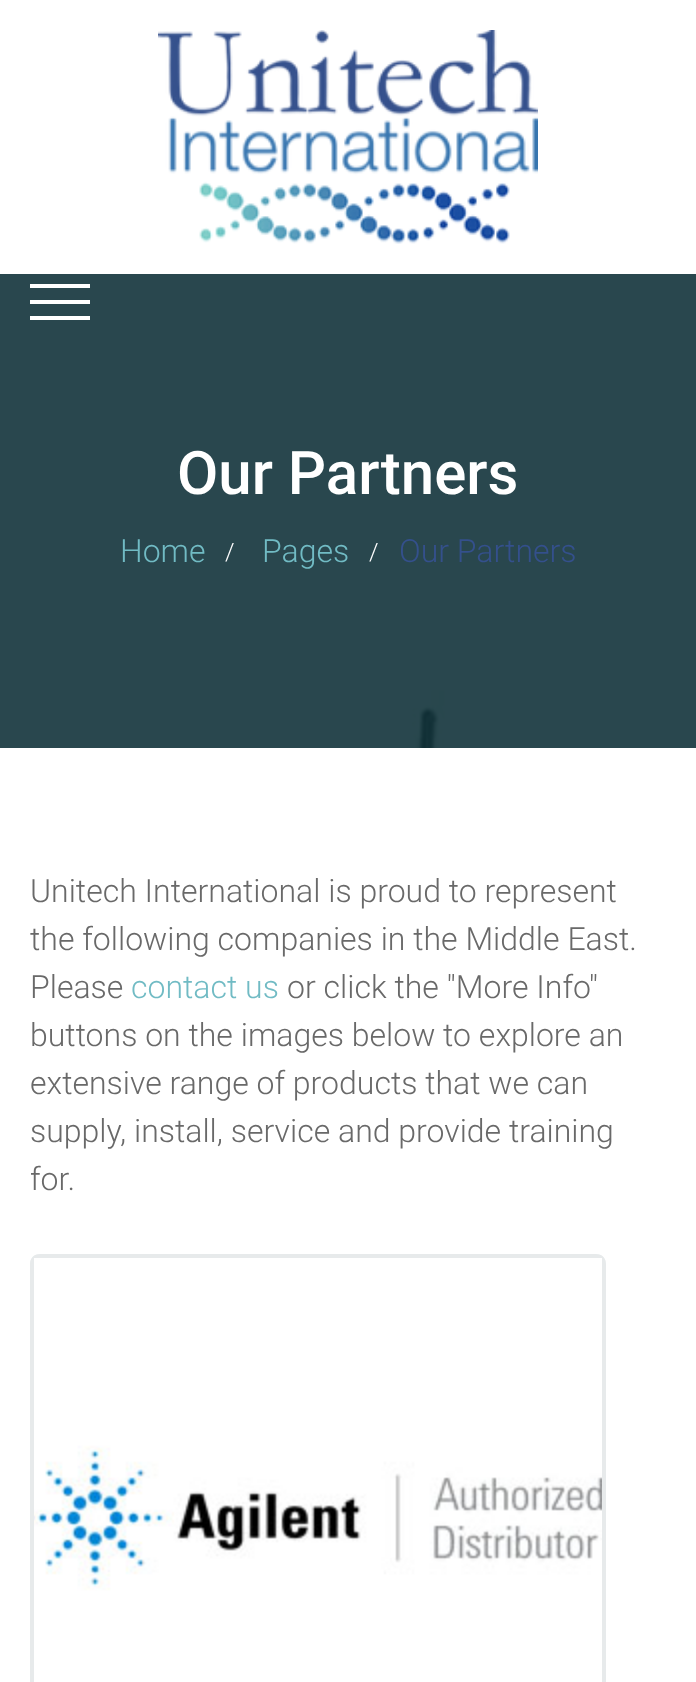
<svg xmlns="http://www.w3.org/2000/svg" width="696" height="1682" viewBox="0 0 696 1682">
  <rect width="100%" height="100%" fill="#fff"/>
  <image x="158" y="30" width="380" height="214" href="img/1.png"/>
  <image x="0" y="274" width="696" height="474" href="img/2.png"/>
  <path d="M30 284h60v4H30z" fill="#fff"/>
  <path d="M30 316h60v4H30z" fill="#fff"/>
  <path d="M30 300h60v4H30z" fill="#fff"/>
  <rect x="32" y="1256" width="572" height="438" rx="8" fill="none" stroke="#e7eaeb" stroke-width="4"/>
  <image x="30" y="1254" width="576" height="428" href="img/3.png"/>
  <path d="M40 1254C34 1254 30 1258 30 1264V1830H606V1264C606 1258 602 1254 596 1254ZM34 1258V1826H602V1258Z" fill="#e7eaeb" fill-rule="evenodd"/>
  <text x="177" y="494" font-family="Roboto" font-size="60" font-weight="500" fill="#fff">Our Partners</text>
  <text x="120" y="562" font-family="Roboto" font-size="32" font-weight="300" fill="#71bbc4">Home</text>
  <text x="225" y="560" font-family="Roboto" font-size="24" font-weight="300" fill="#fff">/</text>
  <text x="262" y="562" font-family="Roboto" font-size="32" font-weight="300" fill="#71bbc4">Pages</text>
  <text x="369" y="560" font-family="Roboto" font-size="24" font-weight="300" fill="#fff">/</text>
  <text x="399" y="562" font-family="Roboto" font-size="32" font-weight="300" fill="#34508c">Our Partners</text>
  <g font-family="Roboto" font-size="32" font-weight="300" fill="#696969">
    <text x="30" y="902">Unitech International is proud to represent</text>
    <text x="30" y="950">the following companies in the Middle East.</text>
    <text x="30" y="998">Please</text>
  </g>
  <text x="131" y="998" font-family="Roboto" font-size="32" font-weight="300" fill="#71bbc4">contact us</text>
  <g font-family="Roboto" font-size="32" font-weight="300" fill="#696969">
    <text x="287" y="998">or click the "More Info"</text>
    <text x="30" y="1046">buttons on the images below to explore an</text>
    <text x="30" y="1094">extensive range of products that we can</text>
    <text x="30" y="1142">supply, install, service and provide training</text>
    <text x="30" y="1190">for.</text>
  </g>
</svg>
